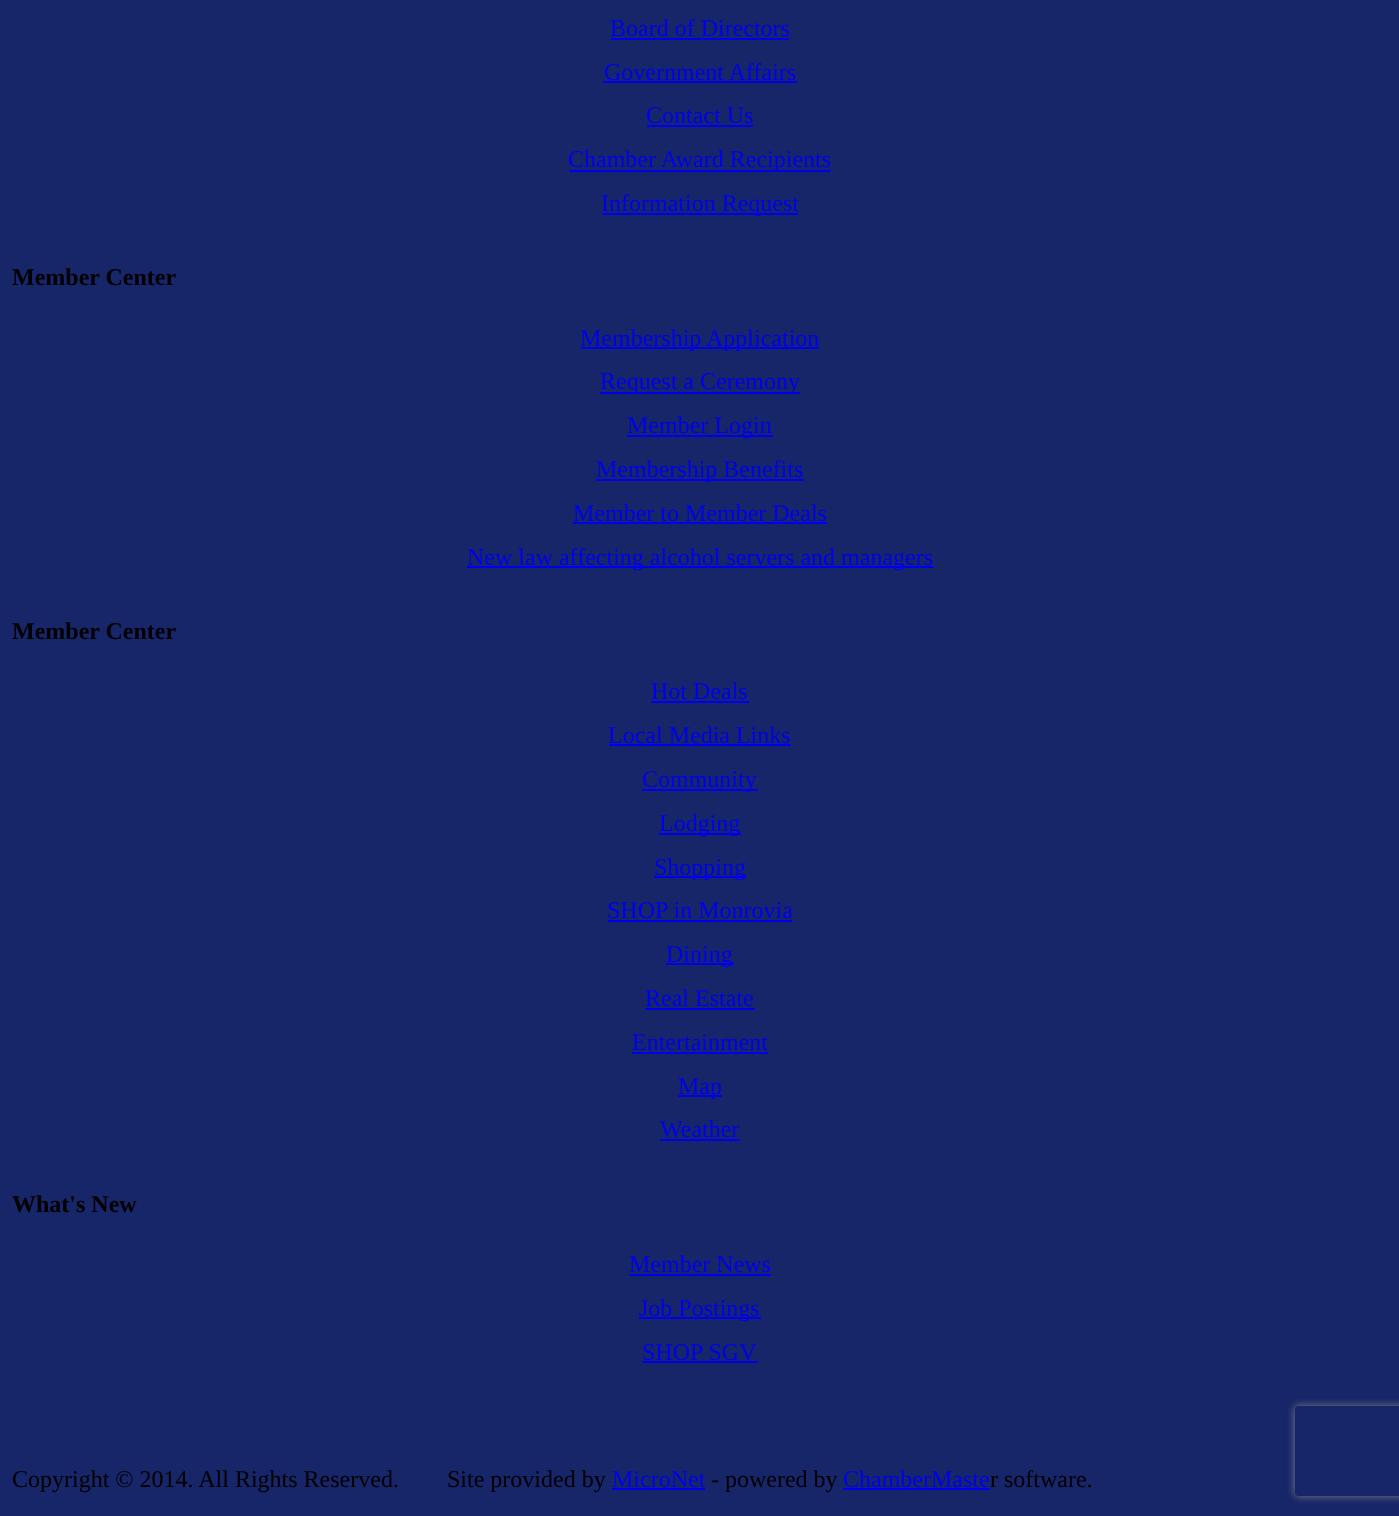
<svg xmlns="http://www.w3.org/2000/svg" width="1399" height="1516" viewBox="0 0 1399 1516">
  <defs>
    <clipPath id="clip1"><path d="M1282 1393H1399V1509H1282ZM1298 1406H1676C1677.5 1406 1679 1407.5 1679 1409V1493C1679 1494.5 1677.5 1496 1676 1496H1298C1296.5 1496 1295 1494.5 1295 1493V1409C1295 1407.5 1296.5 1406 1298 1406Z" clip-rule="evenodd"/></clipPath>
  </defs>
  <rect width="100%" height="100%" fill="#172569"/>
  <path d="M611 38h178v2H611z" fill="#00e"/>
  <path d="M603 81h194v2H603z" fill="#00e"/>
  <path d="M647 125h106v2H647z" fill="#00e"/>
  <path d="M569 170h262v2H569z" fill="#00e"/>
  <path d="M602 213h196v2H602z" fill="#00e"/>
  <path d="M581 347h238v2H581z" fill="#00e"/>
  <path d="M600 392h200v2H600z" fill="#00e"/>
  <path d="M627 435h146v2H627z" fill="#00e"/>
  <path d="M596 479h208v2H596z" fill="#00e"/>
  <path d="M573 522h254v2H573z" fill="#00e"/>
  <path d="M467 566h466v2H467z" fill="#00e"/>
  <path d="M651 701h98v2H651z" fill="#00e"/>
  <path d="M609 744h182v2H609z" fill="#00e"/>
  <path d="M642 789h116v2H642z" fill="#00e"/>
  <path d="M659 833h82v2H659z" fill="#00e"/>
  <path d="M654 876h92v2H654z" fill="#00e"/>
  <path d="M608 920h184v2H608z" fill="#00e"/>
  <path d="M666 963h68v2H666z" fill="#00e"/>
  <path d="M645 1008h110v2H645z" fill="#00e"/>
  <path d="M632 1052h136v2H632z" fill="#00e"/>
  <path d="M678 1095h44v2H678z" fill="#00e"/>
  <path d="M660 1139h80v2H660z" fill="#00e"/>
  <path d="M629 1274h142v2H629z" fill="#00e"/>
  <path d="M639 1317h122v2H639z" fill="#00e"/>
  <path d="M642 1361h116v2H642z" fill="#00e"/>
  <path d="M612 1488h93v2H612z" fill="#00e"/>
  <path d="M843 1488h147v2H843z" fill="#00e"/>
  <g clip-path="url(#clip1)">
    <rect x="1295" y="1406" width="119" height="90" rx="3" fill="#808080" filter="blur(4px)"/>
  </g>
  <g font-family="Liberation Serif" font-size="24" fill="#00e">
    <text x="610" y="36">Board of Directors</text>
    <text x="604" y="80">Government Affairs</text>
    <text x="646" y="123">Contact Us</text>
    <text x="568" y="167">Chamber Award Recipients</text>
    <text x="601" y="211">Information Request</text>
  </g>
  <text x="12" y="285" font-family="Liberation Serif" font-size="24" font-weight="bold" fill="#000">Member Center</text>
  <g font-family="Liberation Serif" font-size="24" fill="#00e">
    <text x="580" y="346">Membership Application</text>
    <text x="600" y="389">Request a Ceremony</text>
    <text x="627" y="433">Member Login</text>
    <text x="596" y="477">Membership Benefits</text>
    <text x="573" y="521">Member to Member Deals</text>
    <text x="467" y="565">New law affecting alcohol servers and managers</text>
  </g>
  <text x="12" y="639" font-family="Liberation Serif" font-size="24" font-weight="bold" fill="#000">Member Center</text>
  <g font-family="Liberation Serif" font-size="24" fill="#00e">
    <text x="651" y="699">Hot Deals</text>
    <text x="608" y="743">Local Media Links</text>
    <text x="642" y="787">Community</text>
    <text x="659" y="831">Lodging</text>
    <text x="654" y="875">Shopping</text>
    <text x="607" y="918">SHOP in Monrovia</text>
    <text x="666" y="962">Dining</text>
    <text x="645" y="1006">Real Estate</text>
    <text x="632" y="1050">Entertainment</text>
    <text x="678" y="1094">Map</text>
    <text x="660" y="1137">Weather</text>
  </g>
  <text x="12" y="1212" font-family="Liberation Serif" font-size="24" font-weight="bold" fill="#000">What's New</text>
  <g font-family="Liberation Serif" font-size="24" fill="#00e">
    <text x="629" y="1272">Member News</text>
    <text x="639" y="1316">Job Postings</text>
    <text x="642" y="1360">SHOP SGV</text>
  </g>
  <g font-family="Liberation Serif" font-size="24" fill="#000">
    <text x="12" y="1487">Copyright © 2014. All Rights Reserved.</text>
    <text x="447" y="1487">Site provided by</text>
  </g>
  <text x="612" y="1487" font-family="Liberation Serif" font-size="24" fill="#00e">MicroNet</text>
  <text x="711" y="1487" font-family="Liberation Serif" font-size="24" fill="#000">- powered by</text>
  <text x="843" y="1487" font-family="Liberation Serif" font-size="24" fill="#00e">ChamberMaste</text>
  <text x="990" y="1487" font-family="Liberation Serif" font-size="24" fill="#000">r software.</text>
</svg>
